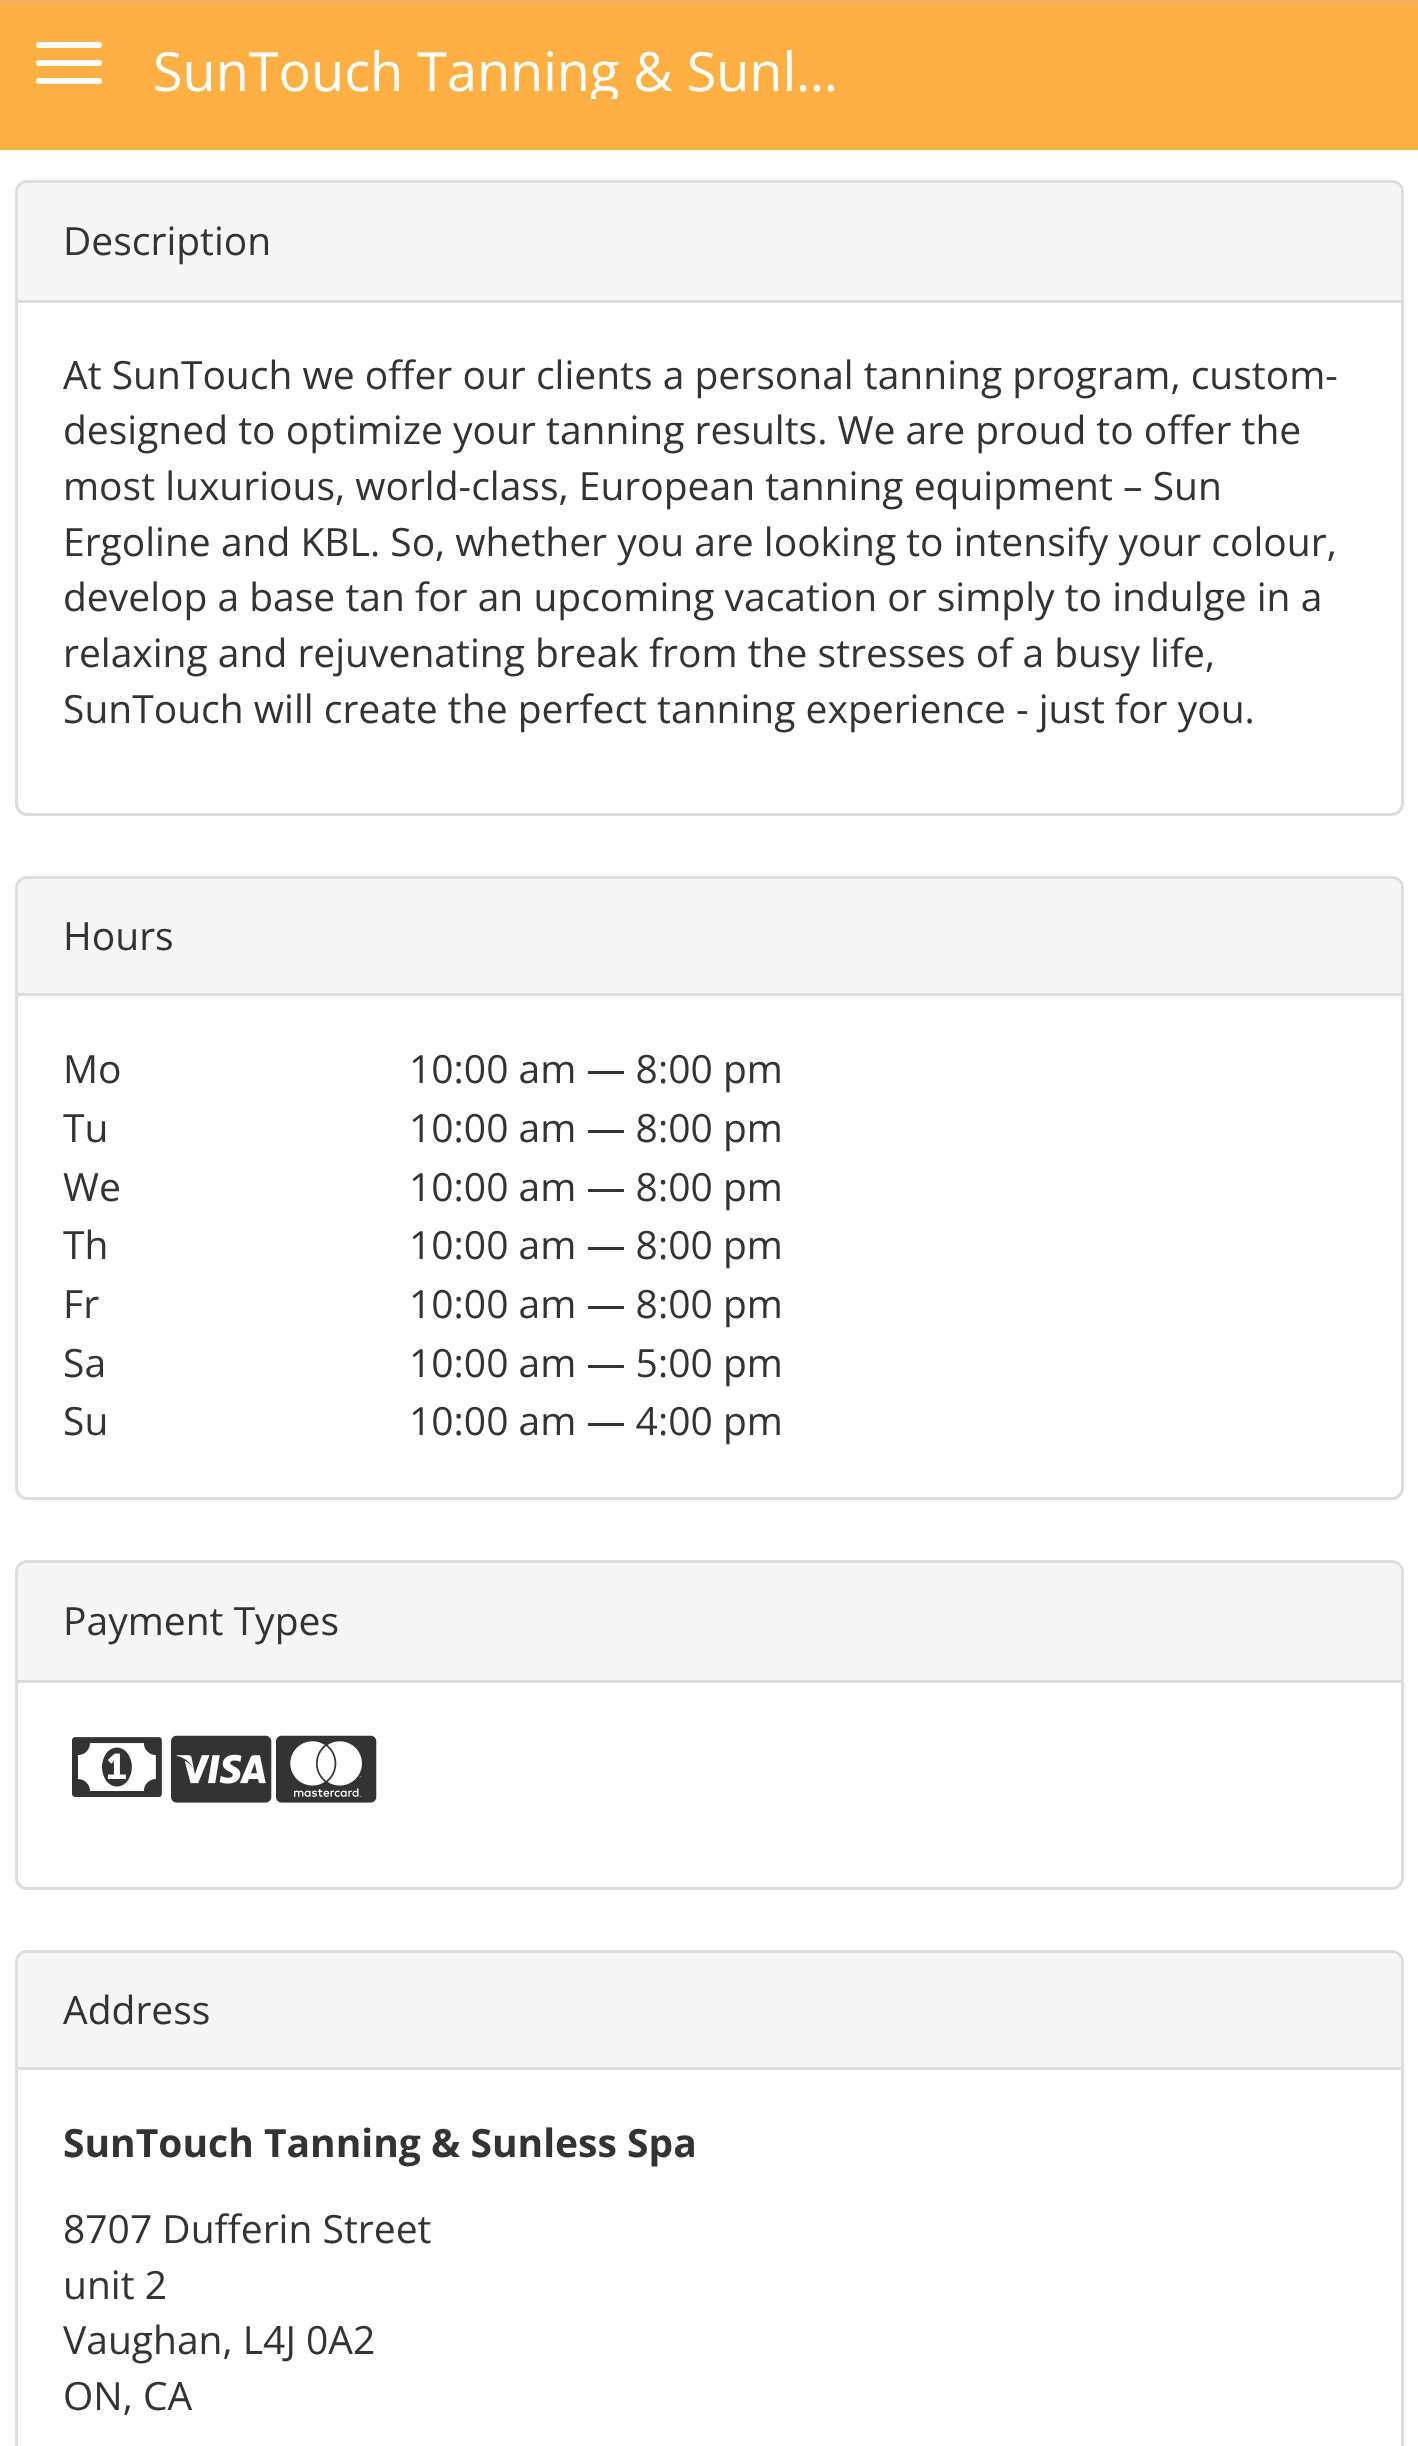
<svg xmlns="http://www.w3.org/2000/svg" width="1418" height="2446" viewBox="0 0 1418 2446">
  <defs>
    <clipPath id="clip1"><path d="M153 39h702v60H153z"/></clipPath>
  </defs>
  <rect width="100%" height="100%" fill="#fff"/>
  <path d="M0 0h1418v6H0z" fill="#f8ac59"/>
  <path d="M0 6h1418v144H0z" fill="#ffb045"/>
  <rect x="36" y="42" width="66" height="6" rx="3" fill="#fff"/>
  <rect x="36" y="60" width="66" height="6" rx="3" fill="#fff"/>
  <rect x="36" y="78" width="66" height="6" rx="3" fill="#fff"/>
  <rect x="16.5" y="181.5" width="1386" height="633" rx="10.5" fill="none" stroke="#ddd" stroke-width="3"/>
  <path d="M27 183H1392C1397 183 1401 187 1401 192V303H18V192C18 187 22 183 27 183Z" fill="#f5f5f5"/>
  <path d="M18 300h1383v3H18z" fill="#ddd"/>
  <rect x="16.5" y="877.5" width="1386" height="621" rx="10.5" fill="none" stroke="#ddd" stroke-width="3"/>
  <path d="M27 879H1392C1397 879 1401 883 1401 888V996H18V888C18 883 22 879 27 879Z" fill="#f5f5f5"/>
  <path d="M18 993h1383v3H18z" fill="#ddd"/>
  <rect x="16.5" y="1561.5" width="1386" height="327" rx="10.5" fill="none" stroke="#ddd" stroke-width="3"/>
  <path d="M27 1563H1392C1397 1563 1401 1567 1401 1572V1683H18V1572C18 1567 22 1563 27 1563Z" fill="#f5f5f5"/>
  <path d="M18 1680h1383v3H18z" fill="#ddd"/>
  <image x="72" y="1737" width="90" height="60" href="img/1.png"/>
  <image x="171" y="1735" width="101" height="68" href="img/2.png"/>
  <image x="276" y="1735" width="101" height="68" href="img/3.png"/>
  <rect x="16.5" y="1951.5" width="1386" height="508" rx="10.5" fill="none" stroke="#ddd" stroke-width="3"/>
  <path d="M27 1953H1392C1397 1953 1401 1957 1401 1962V2070H18V1962C18 1957 22 1953 27 1953Z" fill="#f5f5f5"/>
  <path d="M18 2067h1383v3H18z" fill="#ddd"/>
  <g clip-path="url(#clip1)">
    <text x="153" y="91" font-family="Open Sans" font-size="54" fill="#fff">SunTouch Tanning &amp; Sunl…</text>
  </g>
  <g font-family="Open Sans" font-size="39" fill="#333">
    <text x="63" y="255">Description</text>
    <text x="63" y="389">At SunTouch we offer our clients a personal tanning program, custom-</text>
    <text x="63" y="444">designed to optimize your tanning results. We are proud to offer the</text>
    <text x="63" y="500">most luxurious, world-class, European tanning equipment – Sun</text>
    <text x="63" y="556">Ergoline and KBL. So, whether you are looking to intensify your colour,</text>
    <text x="63" y="611">develop a base tan for an upcoming vacation or simply to indulge in a</text>
    <text x="63" y="667">relaxing and rejuvenating break from the stresses of a busy life,</text>
    <text x="63" y="723">SunTouch will create the perfect tanning experience - just for you.</text>
    <text x="63" y="950">Hours</text>
    <text x="63" y="1083">Mo</text>
    <text x="409" y="1083">10:00 am — 8:00 pm</text>
    <text x="63" y="1142">Tu</text>
    <text x="409" y="1142">10:00 am — 8:00 pm</text>
    <text x="63" y="1201">We</text>
    <text x="409" y="1201">10:00 am — 8:00 pm</text>
    <text x="63" y="1259">Th</text>
    <text x="409" y="1259">10:00 am — 8:00 pm</text>
    <text x="63" y="1318">Fr</text>
    <text x="409" y="1318">10:00 am — 8:00 pm</text>
    <text x="63" y="1377">Sa</text>
    <text x="409" y="1377">10:00 am — 5:00 pm</text>
    <text x="63" y="1435">Su</text>
    <text x="409" y="1435">10:00 am — 4:00 pm</text>
    <text x="63" y="1635">Payment Types</text>
    <text x="63" y="2024">Address</text>
  </g>
  <text x="63" y="2157" font-family="Open Sans" font-size="39" font-weight="bold" fill="#333">SunTouch Tanning &amp; Sunless Spa</text>
  <g font-family="Open Sans" font-size="39" fill="#333">
    <text x="63" y="2243">8707 Dufferin Street</text>
    <text x="63" y="2299">unit 2</text>
    <text x="63" y="2354">Vaughan, L4J 0A2</text>
    <text x="63" y="2410">ON, CA</text>
  </g>
</svg>
